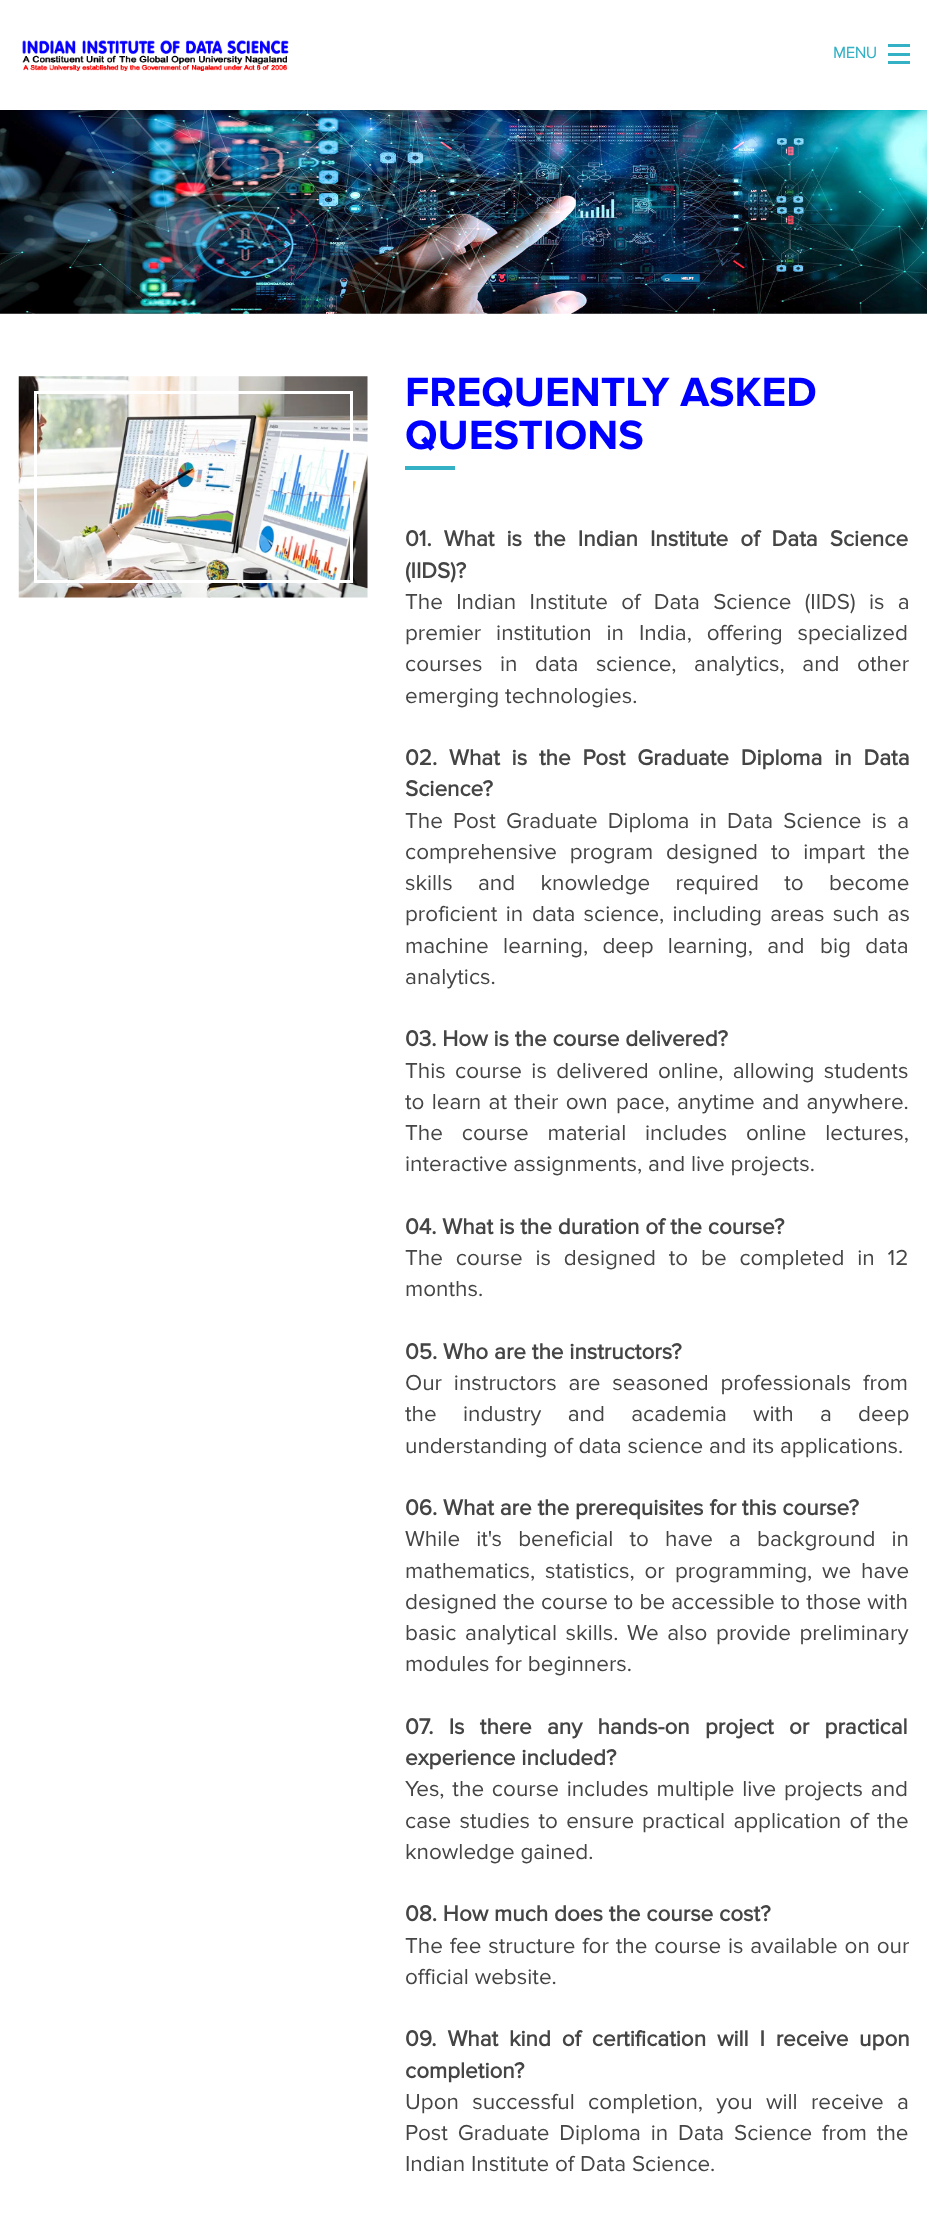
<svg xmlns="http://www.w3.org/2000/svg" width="927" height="2229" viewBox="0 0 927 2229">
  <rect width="100%" height="100%" fill="#fff"/>
  <image x="22" y="40" width="267" height="31" href="img/1.png"/>
  <path d="M888 61h22v3H888z" fill="#34b1c4"/>
  <path d="M888 53h22v3H888z" fill="#34b1c4"/>
  <path d="M888 44h22v3H888z" fill="#34b1c4"/>
  <image x="0" y="110" width="927" height="204" href="img/2.png"/>
  <image x="18" y="376" width="350" height="222" href="img/3.png"/>
  <path d="M35.5 392.5h316v189H35.5z" fill="none" stroke="#fff" stroke-width="3"/>
  <path d="M405 466h50v4H405z" fill="#34b1c4"/>
  <text x="833" y="58" font-family="'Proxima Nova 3'" font-size="16" font-weight="bold" fill="#34b1c4">MENU</text>
  <g font-family="'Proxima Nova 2'" font-size="42.5" font-weight="bold" fill="#00f">
    <text x="405" y="406">FREQUENTLY ASKED</text>
    <text x="405" y="449">QUESTIONS</text>
  </g>
  <g font-family="Proxima Nova" font-size="22.5" font-weight="bold" fill="#454545">
    <text x="405" y="546" word-spacing="6.25">01. What is the Indian Institute of Data Science</text>
    <text x="405" y="578">(IIDS)?</text>
  </g>
  <g font-family="Proxima Nova" font-size="22.5" fill="#454545">
    <text x="405" y="609" word-spacing="7.5">The Indian Institute of Data Science (IIDS) is a</text>
    <text x="405" y="640" word-spacing="9">premier institution in</text>
    <text x="639" y="640" word-spacing="9">India, offering specialized</text>
    <text x="405" y="671" word-spacing="11.75">courses in data science, analytics, and other</text>
    <text x="405" y="703">emerging technologies.</text>
  </g>
  <g font-family="Proxima Nova" font-size="22.5" font-weight="bold" fill="#454545">
    <text x="405" y="765" word-spacing="6">02. What is the Post Graduate Diploma in Data</text>
    <text x="405" y="796">Science?</text>
  </g>
  <g font-family="Proxima Nova" font-size="22.5" fill="#454545">
    <text x="405" y="828" word-spacing="4.25">The Post Graduate Diploma in Data Science is a</text>
    <text x="405" y="859" word-spacing="7">comprehensive program</text>
    <text x="666" y="859" word-spacing="7">designed to impart the</text>
    <text x="405" y="890" word-spacing="19.5">skills and knowledge required to become</text>
    <text x="405" y="921" word-spacing="2.5">proficient in</text>
    <text x="532" y="921" word-spacing="2.5">data science, including areas such as</text>
    <text x="405" y="953" word-spacing="8.5">machine learning, deep learning, and</text>
    <text x="820" y="953" word-spacing="8.5">big data</text>
    <text x="405" y="984">analytics.</text>
  </g>
  <text x="405" y="1046" font-family="Proxima Nova" font-size="22.5" font-weight="bold" fill="#454545">03. How is the course delivered?</text>
  <g font-family="Proxima Nova" font-size="22.5" fill="#454545">
    <text x="405" y="1078" word-spacing="3.5">This course is delivered online, allowing students</text>
    <text x="405" y="1109" word-spacing="1.5">to learn at their own</text>
    <text x="616" y="1109" word-spacing="1.5">pace, anytime and anywhere.</text>
    <text x="405" y="1140" word-spacing="13">The course material includes online lectures,</text>
    <text x="405" y="1171">interactive assignments, and live projects.</text>
  </g>
  <text x="405" y="1234" font-family="Proxima Nova" font-size="22.5" font-weight="bold" fill="#454545">04. What is the duration of the course?</text>
  <g font-family="Proxima Nova" font-size="22.5" fill="#454545">
    <text x="405" y="1265" word-spacing="7">The course is designed to be completed in 12</text>
    <text x="405" y="1296">months.</text>
  </g>
  <text x="405" y="1359" font-family="Proxima Nova" font-size="22.5" font-weight="bold" fill="#454545">05. Who are the instructors?</text>
  <g font-family="Proxima Nova" font-size="22.5" fill="#454545">
    <text x="405" y="1390" word-spacing="6">Our instructors are seasoned professionals from</text>
    <text x="405" y="1421" word-spacing="20.5">the industry and academia</text>
    <text x="753" y="1421" word-spacing="20.5">with a deep</text>
    <text x="405" y="1453">understanding of data science and its applications.</text>
  </g>
  <text x="405" y="1515" font-family="Proxima Nova" font-size="22.5" font-weight="bold" fill="#454545">06. What are the prerequisites for this course?</text>
  <g font-family="Proxima Nova" font-size="22.5" fill="#454545">
    <text x="405" y="1546" word-spacing="10.25">While it's beneficial to have a background in</text>
    <text x="405" y="1578" word-spacing="4">mathematics, statistics, or</text>
    <text x="675" y="1578" word-spacing="4">programming, we have</text>
    <text x="405" y="1609" word-spacing="0.25">designed the course to be accessible to those with</text>
    <text x="405" y="1640" word-spacing="2.75">basic analytical skills. We also provide preliminary</text>
    <text x="405" y="1671">modules for beginners.</text>
  </g>
  <g font-family="Proxima Nova" font-size="22.5" font-weight="bold" fill="#454545">
    <text x="405" y="1734" word-spacing="9.5">07. Is there any hands-on project or practical</text>
    <text x="405" y="1765">experience included?</text>
  </g>
  <g font-family="Proxima Nova" font-size="22.5" fill="#454545">
    <text x="405" y="1796" word-spacing="2">Yes, the course includes multiple live projects and</text>
    <text x="405" y="1828" word-spacing="2.5">case studies to ensure</text>
    <text x="642" y="1828" word-spacing="2.5">practical application of the</text>
    <text x="405" y="1859">knowledge gained.</text>
  </g>
  <text x="405" y="1921" font-family="Proxima Nova" font-size="22.5" font-weight="bold" fill="#454545">08. How much does the course cost?</text>
  <g font-family="Proxima Nova" font-size="22.5" fill="#454545">
    <text x="405" y="1953" word-spacing="1">The fee structure for the course is available on our</text>
    <text x="405" y="1984">official website.</text>
  </g>
  <g font-family="Proxima Nova" font-size="22.5" font-weight="bold" fill="#454545">
    <text x="405" y="2046" word-spacing="5">09. What kind of certification will I receive upon</text>
    <text x="405" y="2078">completion?</text>
  </g>
  <g font-family="Proxima Nova" font-size="22.5" fill="#454545">
    <text x="405" y="2109" word-spacing="7.5">Upon successful completion, you will receive a</text>
    <text x="405" y="2140" word-spacing="4">Post Graduate Diploma in Data</text>
    <text x="734" y="2140" word-spacing="4">Science from the</text>
    <text x="405" y="2171">Indian Institute of Data Science.</text>
  </g>
</svg>
